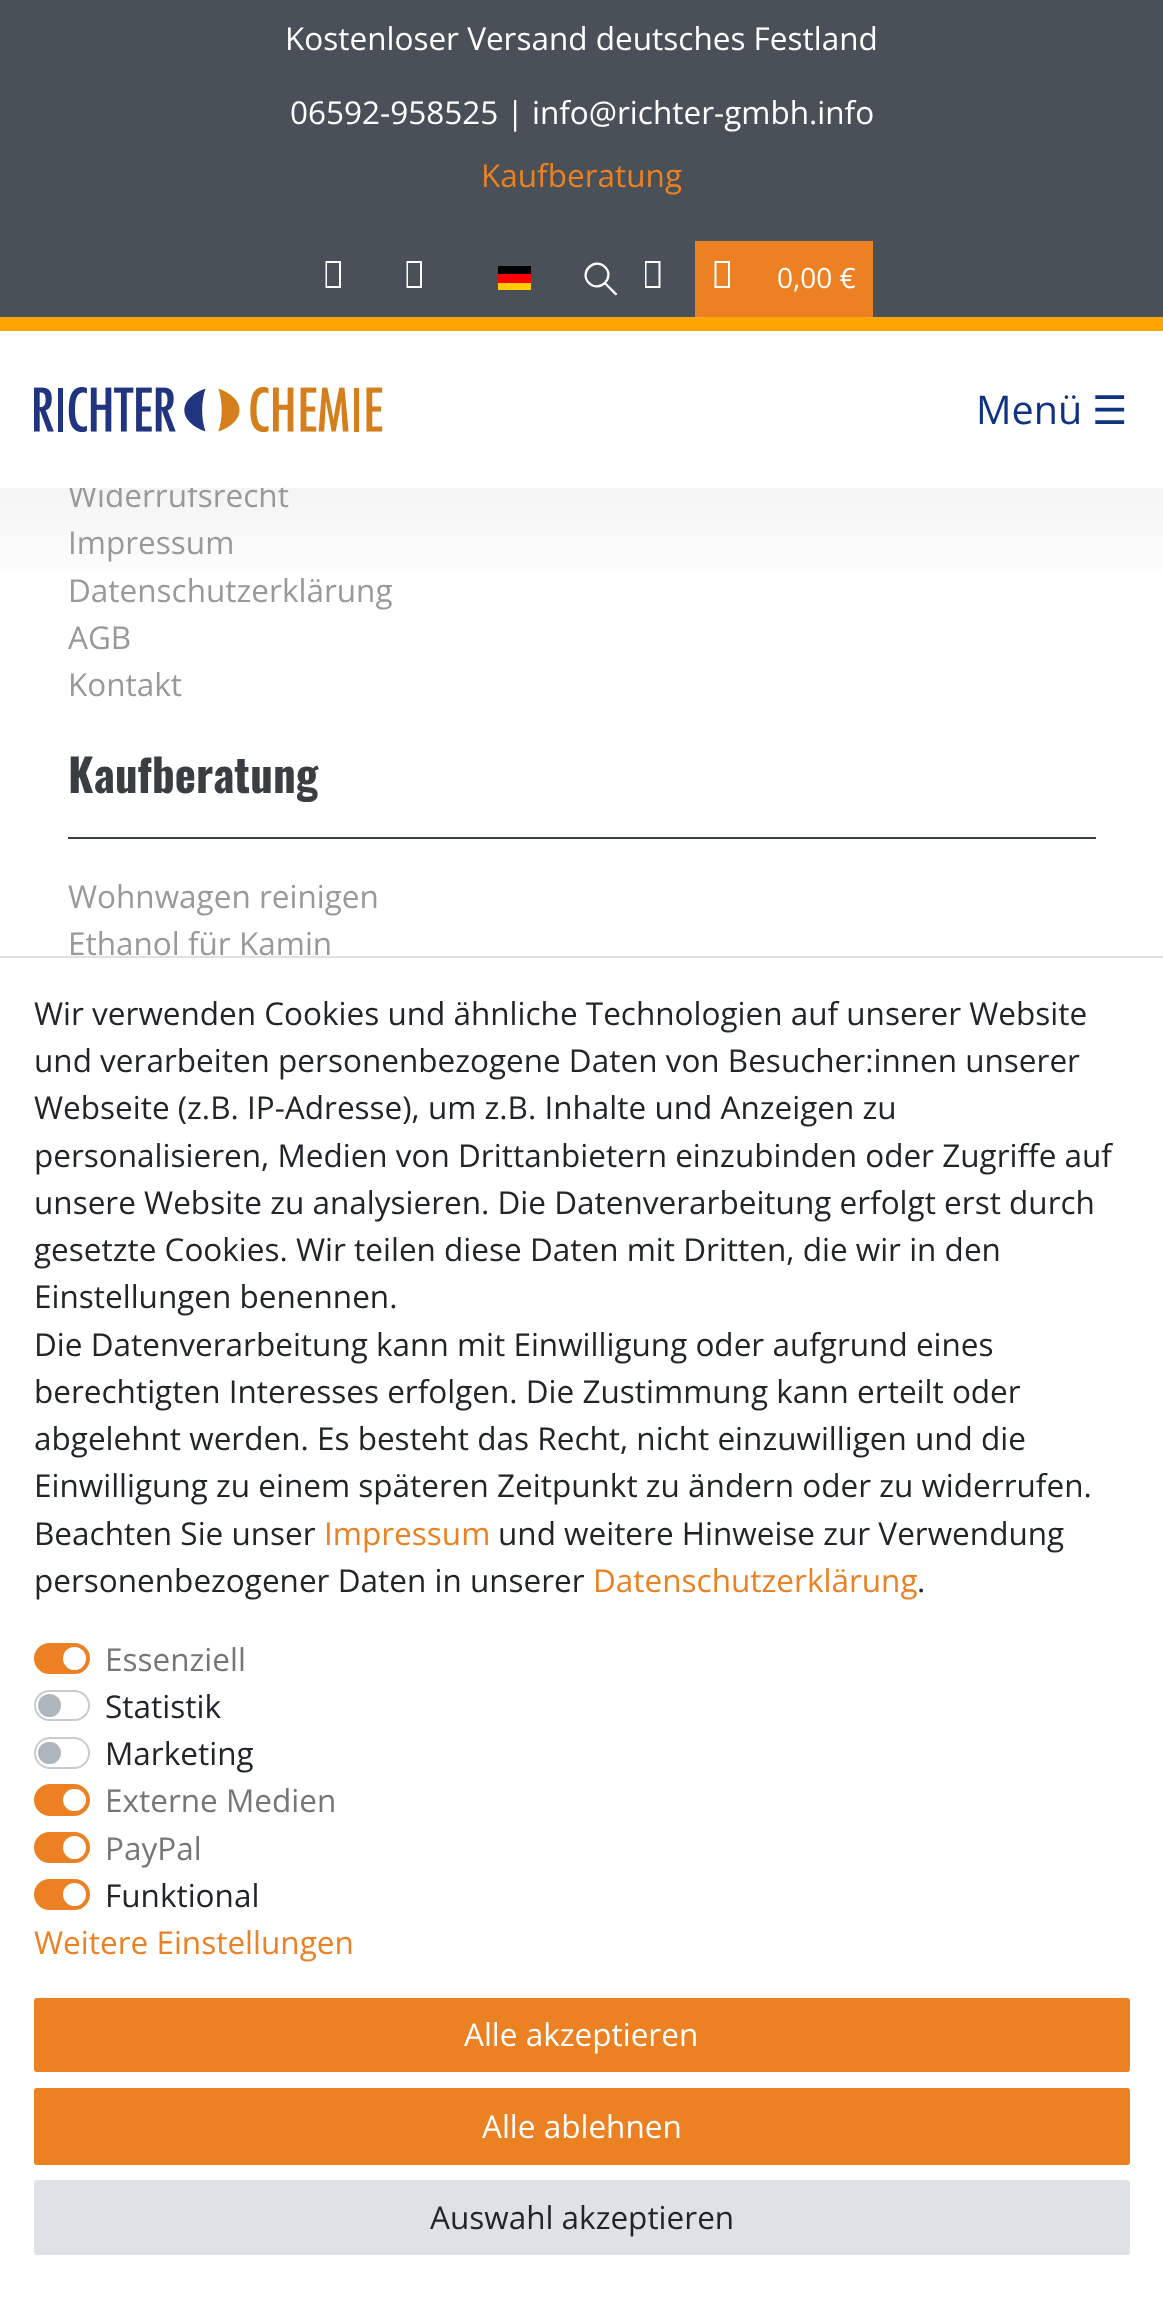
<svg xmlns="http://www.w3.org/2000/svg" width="1163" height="2300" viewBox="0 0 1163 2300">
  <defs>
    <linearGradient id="g1" gradientUnits="userSpaceOnUse" x1="582" y1="81" x2="582" y2="1796"><stop offset="0" stop-color="#1e5799"/><stop offset="0" stop-color="#cbcbcb"/><stop offset="0.3" stop-color="#fff"/></linearGradient>
  </defs>
  <rect width="100%" height="100%" fill="#fff"/>
  <path d="M0 0h1163v317H0z" fill="#495057"/>
  <path d="M0 317h1163v14H0z" fill="#ffa500"/>
  <path d="M325.5 288V261H341V288ZM327 286H339V263H327Z" fill="#fff"/>
  <path d="M406.5 288V261H422V288ZM408 286H420V263H408Z" fill="#fff"/>
  <path d="M498 283h33v7H498z" fill="#fc0"/>
  <path d="M498 266h33v8H498z" fill="#000"/>
  <path d="M498 274h33v9H498z" fill="#f00"/>
  <path d="M615 295L593 272.5L592.5 271.5C593 271 593.5 270.5 594 271L617 293.5C617.5 295 616 295.5 615 295Z" fill="#fff"/>
  <path d="M588 283.5C576.5 272 594 254.5 605.5 266C617 277.5 599.5 295 588 283.5Z" fill="#495057"/>
  <path d="M589 283C578.5 272.5 594.5 256.5 605 267C615.5 277.5 599.5 293.5 589 283Z" fill="none" stroke="#fff" stroke-width="2.3"/>
  <path d="M645 288V261H660.5V288ZM646.5 286H658.5V263H646.5Z" fill="#fff"/>
  <path d="M695 241h178v76H695z" fill="#eb8122"/>
  <path d="M714.5 288V261H730V288ZM716.5 286H728V263H716.5Z" fill="#fff"/>
  <image x="34" y="387" width="349" height="45" href="img/1.png"/>
  <path d="M0 488h1163v83H0z" fill="url(#g1)"/>
  <path d="M68 837h1028v2H68z" fill="#383e42"/>
  <path d="M0 956h1163v2H0z" fill="#dee2e6"/>
  <rect x="35" y="1644" width="54" height="29" rx="14.5" fill="#eb8122" stroke="#eb8122" stroke-width="2"/>
  <circle cx="74.5" cy="1658.5" r="11.5" fill="#fff"/>
  <rect x="35" y="1691" width="54" height="29" rx="14.5" fill="none" stroke="#cbcbcb" stroke-width="2"/>
  <circle cx="49.5" cy="1705.5" r="11.5" fill="#adb5bd"/>
  <rect x="35" y="1738" width="54" height="30" rx="15" fill="none" stroke="#cbcbcb" stroke-width="2"/>
  <rect x="38" y="1742" width="23" height="22" rx="11" fill="#adb5bd"/>
  <rect x="35" y="1785" width="54" height="30" rx="15" fill="#eb8122" stroke="#eb8122" stroke-width="2"/>
  <rect x="63" y="1789" width="23" height="22" rx="11" fill="#fff"/>
  <rect x="35" y="1833" width="54" height="29" rx="14.5" fill="#eb8122" stroke="#eb8122" stroke-width="2"/>
  <circle cx="74.5" cy="1847.5" r="11.5" fill="#fff"/>
  <rect x="35" y="1880" width="54" height="29" rx="14.5" fill="#eb8122" stroke="#eb8122" stroke-width="2"/>
  <circle cx="74.5" cy="1894.5" r="11.5" fill="#fff"/>
  <rect x="35" y="1999" width="1094" height="72" rx="2" fill="#eb8122" stroke="#eb8122" stroke-width="2"/>
  <rect x="35" y="2089" width="1094" height="75" rx="2" fill="#eb8122" stroke="#eb8122" stroke-width="2"/>
  <rect x="35" y="2181" width="1094" height="73" rx="2" fill="#dee2e6" stroke="#dee2e6" stroke-width="2"/>
  <g font-family="Open Sans" font-size="31.5" fill="#fff">
    <text x="285" y="50">Kostenloser Versand deutsches Festland</text>
    <text x="290" y="124">06592-958525 | info@richter-gmbh.info</text>
  </g>
  <text x="481" y="187" font-family="Open Sans" font-size="31.5" fill="#eb8122">Kaufberatung</text>
  <text x="777" y="288" font-family="Open Sans" font-size="28" fill="#fff">0,00 €</text>
  <text x="976" y="424" font-family="Open Sans" font-size="39.5" fill="#103381">Menü</text>
  <text x="1092" y="424" font-family="DejaVu Sans" font-size="39.5" fill="#103381">☰</text>
  <text x="68" y="507" font-family="Open Sans" font-size="31.5" fill="#999">Widerrufsrecht</text>
  <path d="M68 482h215v6H68z" fill="#fff"/>
  <g font-family="Open Sans" font-size="31.5" fill="#999">
    <text x="68" y="554">Impressum</text>
    <text x="68" y="602">Datenschutzerklärung</text>
    <text x="68" y="649">AGB</text>
    <text x="68" y="696">Kontakt</text>
  </g>
  <text x="68" y="793" font-family="Oswald" font-size="45" font-weight="bold" fill="#383e42">Kaufberatung</text>
  <g font-family="Open Sans" font-size="31.5" fill="#999">
    <text x="68" y="908">Wohnwagen reinigen</text>
    <text x="68" y="955">Ethanol für Kamin</text>
  </g>
  <g font-family="Open Sans" font-size="31.5" fill="#212529">
    <text x="34" y="1025">Wir verwenden Cookies und ähnliche Technologien auf unserer Website</text>
    <text x="34" y="1072">und verarbeiten personenbezogene Daten von Besucher:innen unserer</text>
    <text x="34" y="1119">Webseite (z.B. IP-Adresse), um z.B. Inhalte und Anzeigen zu</text>
    <text x="34" y="1167">personalisieren, Medien von Drittanbietern einzubinden oder Zugriffe auf</text>
    <text x="34" y="1214">unsere Website zu analysieren. Die Datenverarbeitung erfolgt erst durch</text>
    <text x="34" y="1261">gesetzte Cookies. Wir teilen diese Daten mit Dritten, die wir in den</text>
    <text x="34" y="1308">Einstellungen benennen.</text>
    <text x="34" y="1356">Die Datenverarbeitung kann mit Einwilligung oder aufgrund eines</text>
    <text x="34" y="1403">berechtigten Interesses erfolgen. Die Zustimmung kann erteilt oder</text>
    <text x="34" y="1450">abgelehnt werden. Es besteht das Recht, nicht einzuwilligen und die</text>
    <text x="34" y="1497">Einwilligung zu einem späteren Zeitpunkt zu ändern oder zu widerrufen.</text>
    <text x="34" y="1545">Beachten Sie unser</text>
  </g>
  <text x="324" y="1545" font-family="Open Sans" font-size="31.5" fill="#eb8122">Impressum</text>
  <g font-family="Open Sans" font-size="31.5" fill="#212529">
    <text x="498" y="1545">und weitere Hinweise zur Verwendung</text>
    <text x="34" y="1592">personenbezogener Daten in unserer</text>
  </g>
  <text x="593" y="1592" font-family="Open Sans" font-size="31.5" fill="#eb8122">Datenschutzerklärung</text>
  <text x="917" y="1592" font-family="Open Sans" font-size="31.5" fill="#212529">.</text>
  <text x="105" y="1671" font-family="Open Sans" font-size="31.5" fill="#767676">Essenziell</text>
  <g font-family="Open Sans" font-size="31.5" fill="#212529">
    <text x="105" y="1718">Statistik</text>
    <text x="105" y="1765">Marketing</text>
  </g>
  <g font-family="Open Sans" font-size="31.5" fill="#767676">
    <text x="105" y="1812">Externe Medien</text>
    <text x="105" y="1860">PayPal</text>
  </g>
  <text x="105" y="1907" font-family="Open Sans" font-size="31.5" fill="#212529">Funktional</text>
  <text x="34" y="1954" font-family="Open Sans" font-size="31.5" fill="#eb8122">Weitere Einstellungen</text>
  <g font-family="Open Sans" font-size="31.5" fill="#fff">
    <text x="464" y="2046">Alle akzeptieren</text>
    <text x="482" y="2138">Alle ablehnen</text>
  </g>
  <text x="430" y="2229" font-family="Open Sans" font-size="31.5" fill="#212529">Auswahl akzeptieren</text>
</svg>
